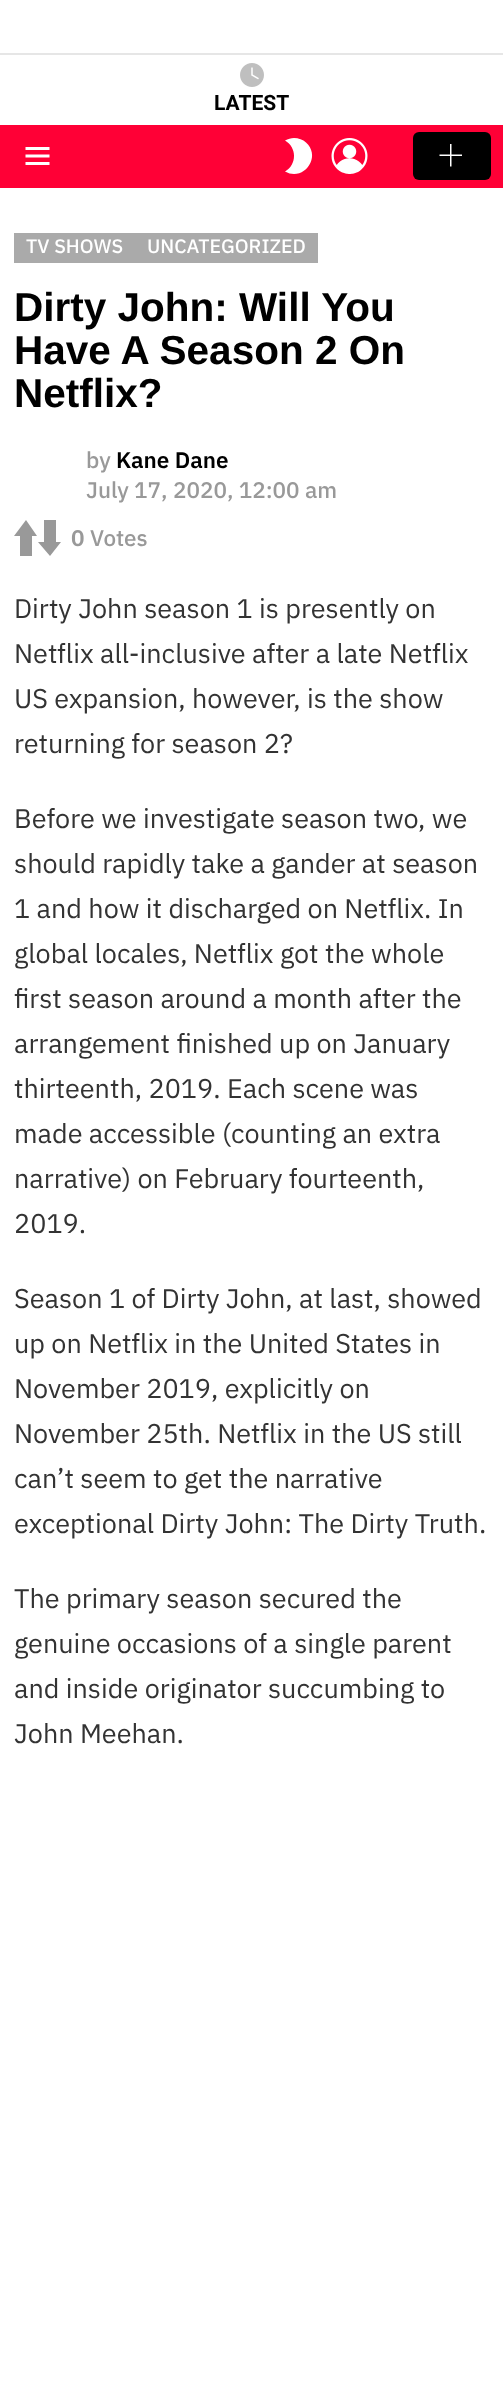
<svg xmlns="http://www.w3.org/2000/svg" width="503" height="2387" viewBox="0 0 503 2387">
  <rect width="100%" height="100%" fill="#fff"/>
  <path d="M0 53h503v2H0z" fill="#e6e6e6"/>
  <image x="240" y="63" width="24" height="24" href="img/1.png"/>
  <path d="M0 125h503v63H0z" fill="#ff0036"/>
  <image x="25" y="147" width="25" height="18" href="img/2.png"/>
  <path d="M294 138C291 138 288 139 285 140.5C297 147.5 297 164.5 285 171.5C303.5 182 322 157 306 142.5C303 139.5 298.5 138 294 138Z" fill="#fff"/>
  <image x="331" y="138" width="37" height="36" href="img/3.png"/>
  <rect x="413" y="132" width="78" height="48" rx="6" fill="#000"/>
  <image x="439" y="144" width="23" height="23" href="img/4.png"/>
  <path d="M14 233h304v30H14z" fill="#aaa"/>
  <path d="M14 536L26 520L37 536ZM20 536H32V556H20ZM38 542L50 556L61 542ZM44 520H56V542H44Z" fill="#999"/>
  <text x="214" y="110" font-family="Roboto" font-size="21" font-weight="bold" fill="#000">LATEST</text>
  <g font-family="IBM Plex Sans" font-size="19.5" font-weight="500" fill="#fff">
    <text x="26" y="253">TV SHOWS</text>
    <text x="147" y="253">UNCATEGORIZED</text>
  </g>
  <g font-family="Liberation Sans" font-size="40.5" font-weight="bold" fill="#000">
    <text x="14" y="321">Dirty John: Will You</text>
    <text x="14" y="364">Have A Season 2 On</text>
    <text x="14" y="407">Netflix?</text>
  </g>
  <text x="86" y="468" font-family="IBM Plex Sans" font-size="22.5" font-weight="500" fill="#999">by</text>
  <text x="116" y="468" font-family="IBM Plex Sans" font-size="22.5" font-weight="600" fill="#000">Kane Dane</text>
  <text x="86" y="498" font-family="IBM Plex Sans" font-size="22.5" font-weight="500" fill="#999">July 17, 2020, 12:00 am</text>
  <text x="71" y="546" font-family="IBM Plex Sans" font-size="22.5" font-weight="600" fill="#999">0</text>
  <text x="90" y="546" font-family="IBM Plex Sans" font-size="22.5" font-weight="500" fill="#999">Votes</text>
  <g font-family="IBM Plex Sans" font-size="27" fill="#333">
    <text x="14" y="618">Dirty John season 1 is presently on</text>
    <text x="14" y="663">Netflix all-inclusive after a late Netflix</text>
    <text x="14" y="708">US expansion, however, is the show</text>
    <text x="14" y="753">returning for season 2?</text>
    <text x="14" y="828">Before we investigate season two, we</text>
    <text x="14" y="873">should rapidly take a gander at season</text>
    <text x="14" y="918">1 and how it discharged on Netflix. In</text>
    <text x="14" y="963">global locales, Netflix got the whole</text>
    <text x="14" y="1008">first season around a month after the</text>
    <text x="14" y="1053">arrangement finished up on January</text>
    <text x="14" y="1098">thirteenth, 2019. Each scene was</text>
    <text x="14" y="1143">made accessible (counting an extra</text>
    <text x="14" y="1188">narrative) on February fourteenth,</text>
    <text x="14" y="1233">2019.</text>
    <text x="14" y="1308">Season 1 of Dirty John, at last, showed</text>
    <text x="14" y="1353">up on Netflix in the United States in</text>
    <text x="14" y="1398">November 2019, explicitly on</text>
    <text x="14" y="1443">November 25th. Netflix in the US still</text>
    <text x="14" y="1488">can’t seem to get the narrative</text>
    <text x="14" y="1533">exceptional Dirty John: The Dirty Truth.</text>
    <text x="14" y="1608">The primary season secured the</text>
    <text x="14" y="1653">genuine occasions of a single parent</text>
    <text x="14" y="1698">and inside originator succumbing to</text>
    <text x="14" y="1743">John Meehan.</text>
  </g>
</svg>
